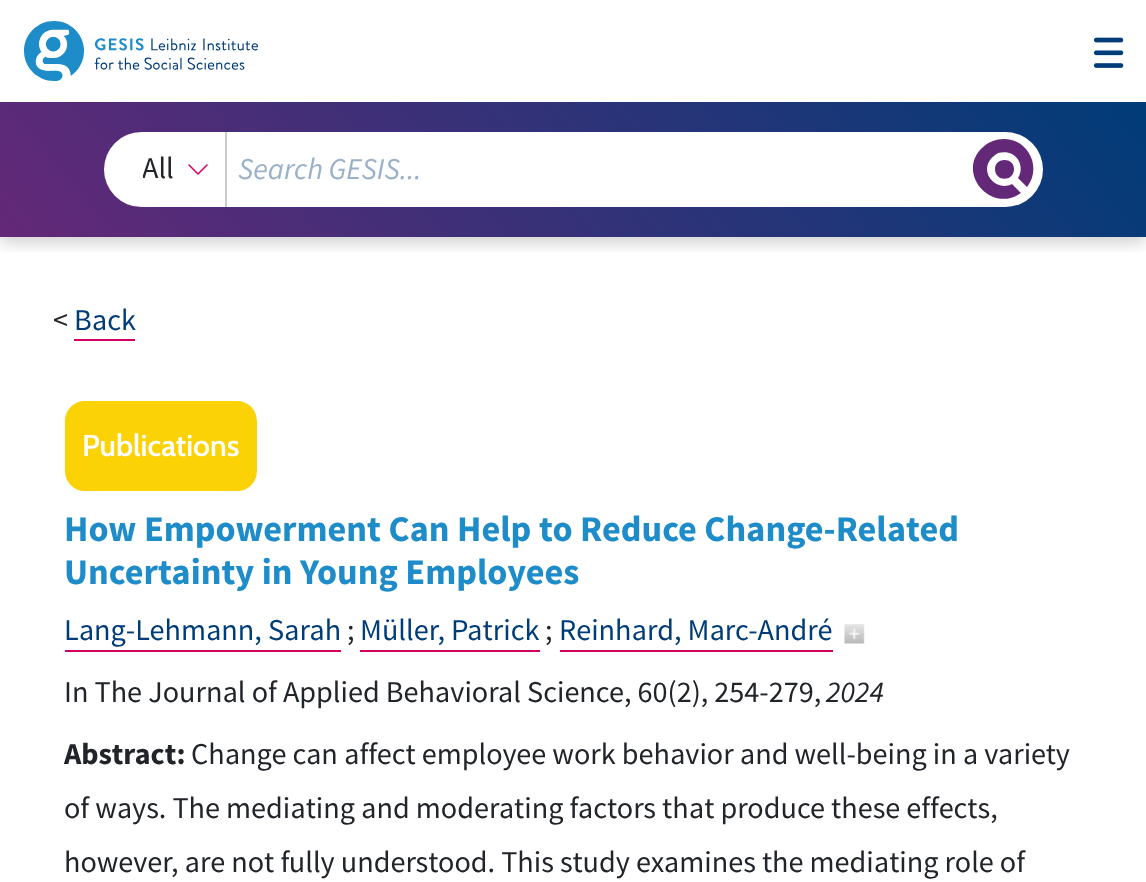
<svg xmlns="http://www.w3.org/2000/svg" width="1146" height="882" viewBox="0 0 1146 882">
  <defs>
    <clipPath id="clip1"><path d="M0 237h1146v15H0z"/></clipPath>
    <linearGradient id="g1" gradientUnits="userSpaceOnUse" x1="204" y1="480" x2="942" y2="-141"><stop offset="0" stop-color="#642878"/><stop offset="1" stop-color="#003c78"/></linearGradient>
    <clipPath id="clip2"><path d="M143 143h33v54H143z"/></clipPath>
  </defs>
  <rect width="100%" height="100%" fill="#fff"/>
  <g clip-path="url(#clip1)">
    <path d="M0 6h1146v237H0z" fill="#0000002e" filter="blur(7.5px)"/>
  </g>
  <image x="24" y="21" width="234" height="60" href="img/1.png"/>
  <image x="1093" y="37" width="31" height="31" href="img/2.png"/>
  <path d="M0 102h1146v135H0z" fill="url(#g1)"/>
  <rect x="104" y="132" width="939" height="75" rx="37.5" fill="#fff"/>
  <image x="188" y="164" width="20" height="11" href="img/3.png"/>
  <path d="M225 132h2v75H225z" fill="#ccc"/>
  <path d="M1014 169C1014 182 995 182 995 169C995 157 1014 157 1014 169ZM1004 139C996 139 988 142 982 148C956 173 991 214 1021 193L1012 184C997 192 980 174 990 160C992 157 995 155 998 153C1003 152 1008 152 1012 154C1021 159 1023 170 1018 178L1027 187C1042 168 1029 139 1004 139ZM1027 187L1018 178Z" fill="#642878"/>
  <path d="M74 339h61v2H74z" fill="#d20064"/>
  <rect x="66.5" y="402.5" width="189" height="87" rx="18.5" fill="#fad205" stroke="#fad205" stroke-width="3"/>
  <path d="M65 650h276v2H65z" fill="#d20064"/>
  <path d="M360 650h180v2H360z" fill="#d20064"/>
  <path d="M560 650h273v2H560z" fill="#d20064"/>
  <image x="844" y="624" width="21" height="20" href="img/4.png"/>
  <g clip-path="url(#clip2)">
    <text x="142" y="178" font-family="Source Sans Pro" font-size="30.2" fill="#212529">All</text>
  </g>
  <text x="238" y="179" font-family="Source Sans Pro" font-size="30.2" font-style="italic" fill="#99b1c9">Search GESIS...</text>
  <text x="53" y="330" font-family="Source Sans Pro" font-size="30.2" fill="#212529">&lt;</text>
  <text x="74" y="330" font-family="Source Sans Pro" font-size="30.2" fill="#003c78">Back</text>
  <text x="82" y="456" font-family="Cabin" font-size="30.2" font-weight="600" fill="#fff">Publications</text>
  <g font-family="Source Sans Pro" font-size="36.25" font-weight="bold" fill="#1e8cc8">
    <text x="64" y="541">How Empowerment Can Help to Reduce Change-Related</text>
    <text x="64" y="584">Uncertainty in Young Employees</text>
  </g>
  <text x="64" y="640" font-family="Source Sans Pro" font-size="30.2" fill="#003c78">Lang-Lehmann, Sarah</text>
  <text x="347" y="640" font-family="Source Sans Pro" font-size="30.2" fill="#212529">;</text>
  <text x="360" y="640" font-family="Source Sans Pro" font-size="30.2" fill="#003c78">Müller, Patrick</text>
  <text x="545" y="640" font-family="Source Sans Pro" font-size="30.2" fill="#212529">;</text>
  <text x="559" y="640" font-family="Source Sans Pro" font-size="30.2" fill="#003c78">Reinhard, Marc-André</text>
  <text x="64" y="702" font-family="Source Sans Pro" font-size="30.2" fill="#212529">In The Journal of Applied Behavioral Science, 60(2), 254-279,</text>
  <text x="826" y="702" font-family="Source Sans Pro" font-size="30.2" font-style="italic" fill="#212529">2024</text>
  <text x="64" y="764" font-family="Source Sans Pro" font-size="30.2" font-weight="bold" fill="#212529">Abstract:</text>
  <g font-family="Source Sans Pro" font-size="30.2" fill="#212529">
    <text x="191" y="764">Change can affect employee work behavior and well-being in a variety</text>
    <text x="64" y="818">of ways. The mediating and moderating factors that produce these effects,</text>
    <text x="64" y="872">however, are not fully understood. This study examines the mediating role of</text>
  </g>
</svg>
